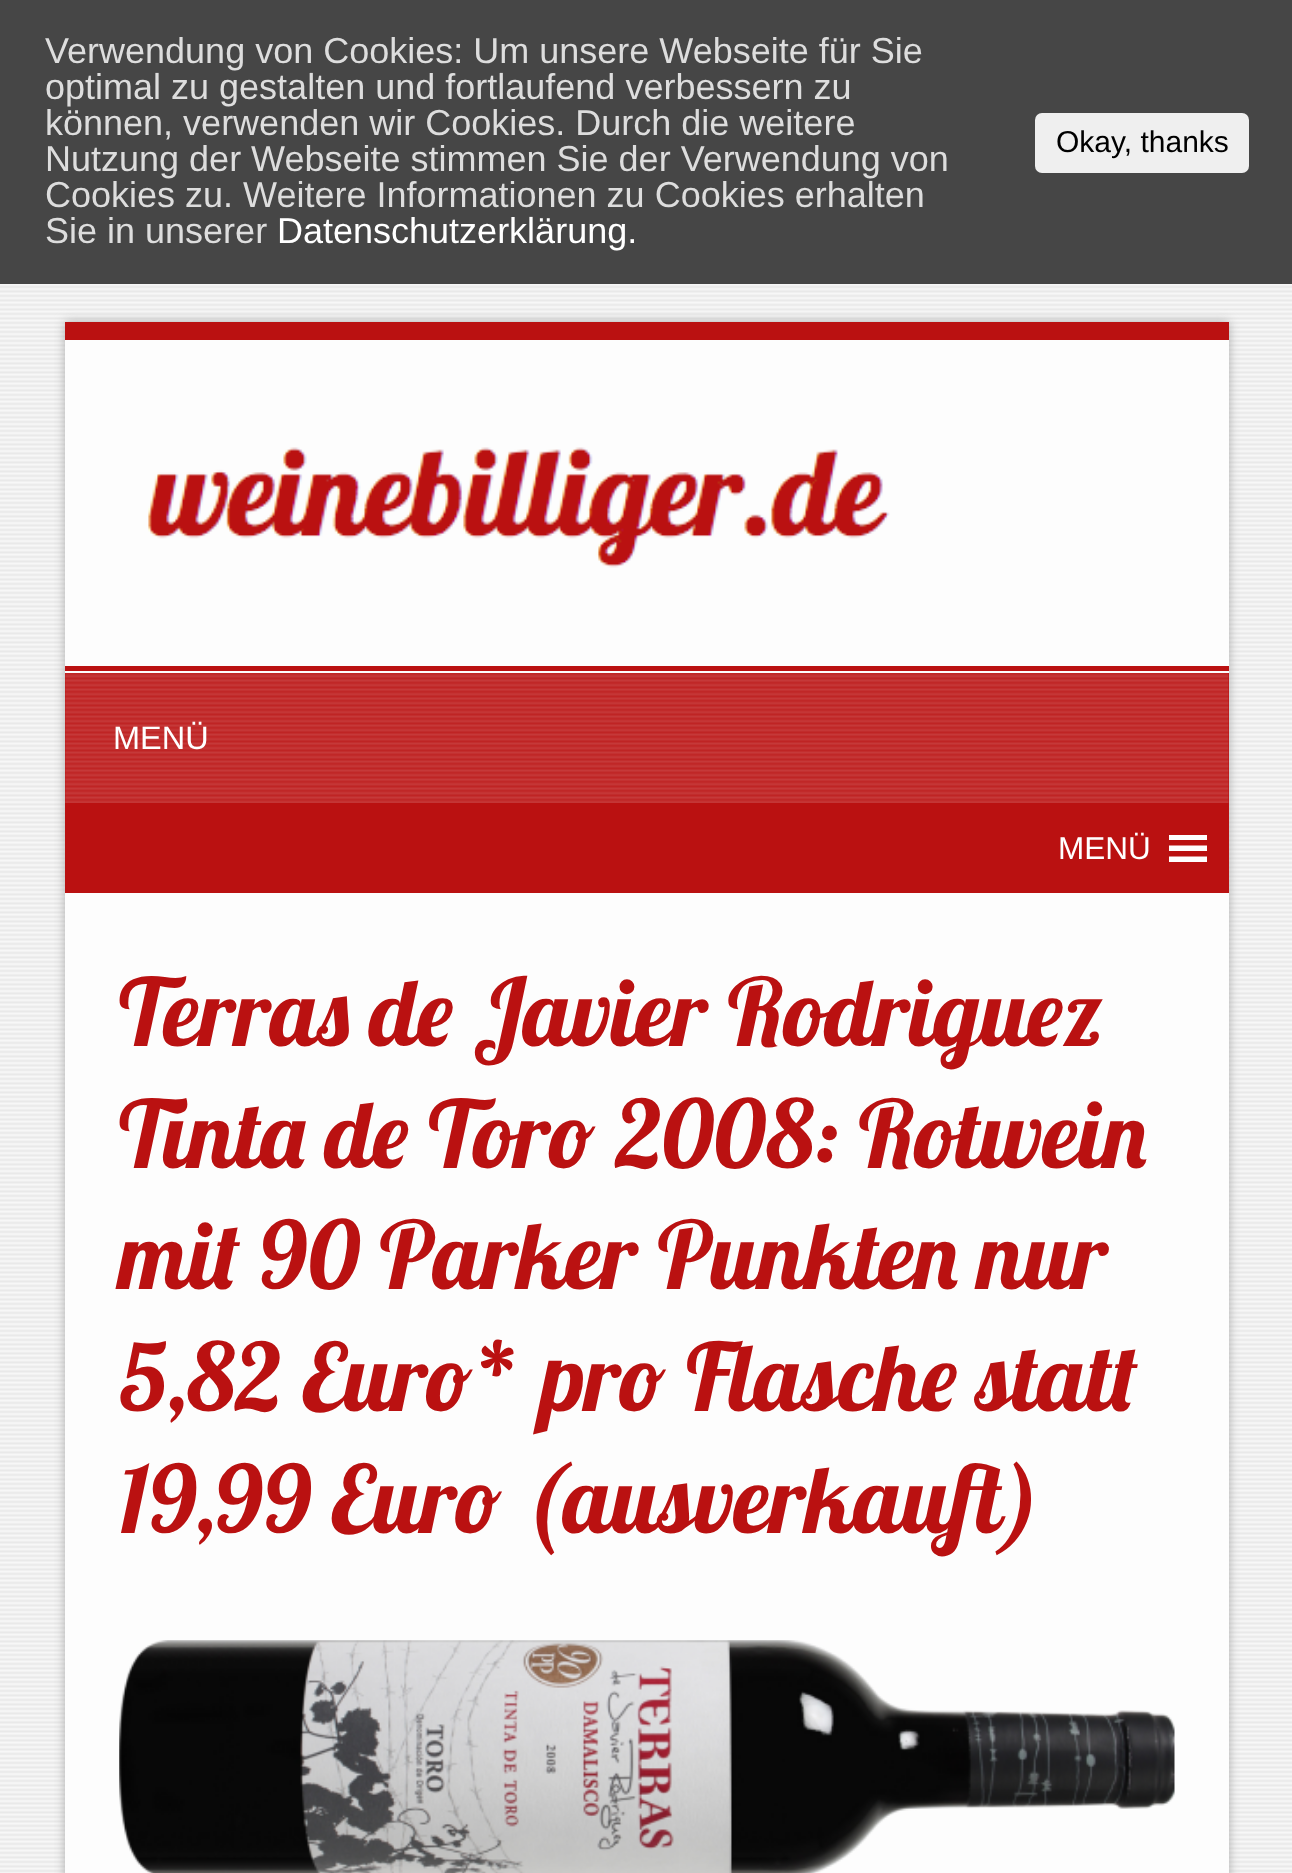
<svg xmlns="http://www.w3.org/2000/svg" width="1292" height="1873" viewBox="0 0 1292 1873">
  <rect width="100%" height="100%" fill="#fff"/>
  <image x="0" y="284" width="1292" height="1589" href="img/1.png"/>
  <path d="M0 0h1292v284H0z" fill="#464646"/>
  <rect x="1035" y="113" width="214" height="60" rx="7" fill="#efefef"/>
  <path d="M65 322h1164v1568H65z" fill="#aaa" filter="blur(5.5px)"/>
  <path d="M65 340h1164v1533H65z" fill="#fdfdfd"/>
  <path d="M65 322h1164v18H65z" fill="#ba1111"/>
  <image x="148" y="447" width="742" height="121" href="img/2.png"/>
  <path d="M65 673h1164v220H65z" fill="#ba1111"/>
  <image x="65" y="673" width="1164" height="130" href="img/3.png"/>
  <path d="M65 666h1164v5H65z" fill="#ba1111"/>
  <path d="M1207 840V835H1169V840ZM1207 851V845.5H1169V851ZM1207 862V856.5H1169V862Z" fill="#fff"/>
  <image x="119" y="1640" width="1056" height="233" href="img/4.png"/>
  <g font-family="Arimo" font-size="36" fill="#ddd">
    <text x="45" y="63">Verwendung von Cookies: Um unsere Webseite für Sie</text>
    <text x="45" y="99">optimal zu gestalten und fortlaufend verbessern zu</text>
    <text x="45" y="135">können, verwenden wir Cookies. Durch die weitere</text>
    <text x="45" y="171">Nutzung der Webseite stimmen Sie der Verwendung von</text>
    <text x="45" y="207">Cookies zu. Weitere Informationen zu Cookies erhalten</text>
    <text x="45" y="243">Sie in unserer</text>
  </g>
  <text x="277" y="243" font-family="Arimo" font-size="36" fill="#fff">Datenschutzerklärung.</text>
  <text x="1056" y="152" font-family="Liberation Sans" font-size="30" fill="#000">Okay, thanks</text>
  <text x="113" y="749" font-family="Arimo" font-size="32.5" fill="#fff">MENÜ</text>
  <text x="1058" y="859" font-family="Liberation Sans" font-size="31.5" fill="#fff">MENÜ</text>
  <g font-family="Lobster" font-size="93.6" fill="#ba1111">
    <text x="119" y="1046">Terras de Javier Rodriguez</text>
    <text x="119" y="1168">Tinta de Toro 2008: Rotwein</text>
    <text x="119" y="1289">mit 90 Parker Punkten nur</text>
    <text x="119" y="1411">5,82 Euro* pro Flasche statt</text>
    <text x="119" y="1533">19,99 Euro (ausverkauft)</text>
  </g>
</svg>
